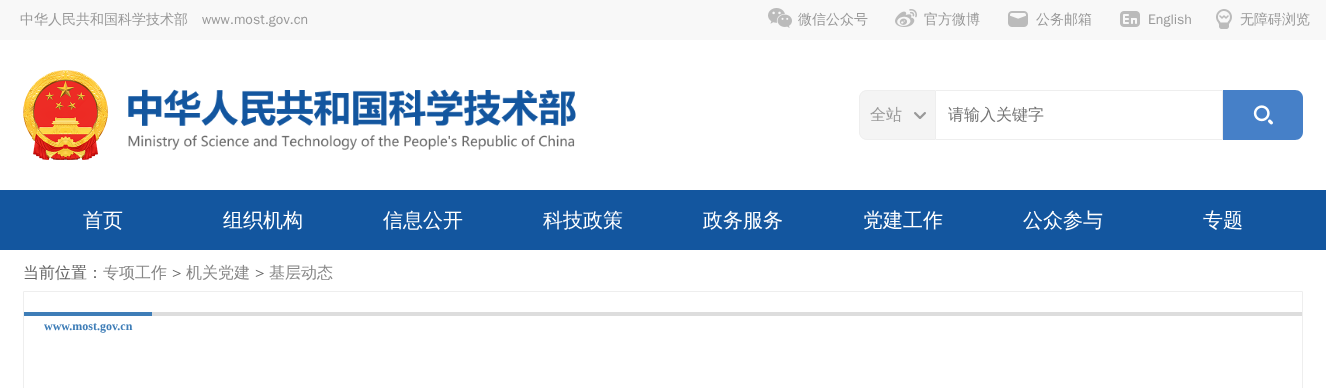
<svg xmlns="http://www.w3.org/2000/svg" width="1326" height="388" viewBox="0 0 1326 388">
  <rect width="100%" height="100%" fill="#fff"/>
  <path d="M0 0h1326v40H0z" fill="#f8f8f8"/>
  <image x="768" y="8" width="24" height="20" href="img/1.png"/>
  <image x="895" y="9" width="22" height="18" href="img/2.png"/>
  <image x="1008" y="11" width="20" height="16" href="img/3.png"/>
  <image x="1120" y="11" width="20" height="16" href="img/4.png"/>
  <image x="1216" y="9" width="16" height="20" href="img/5.png"/>
  <image x="23" y="70" width="85" height="90" href="img/6.png"/>
  <image x="128" y="89" width="448" height="61" href="img/7.png"/>
  <path d="M867 90H935V140H867C862.5 140 859 136.5 859 132V98C859 93.5 862.5 90 867 90Z" fill="#f4f4f4"/>
  <image x="914" y="112" width="12" height="7" href="img/8.png"/>
  <path d="M867 90H935V140H867C863 140 859 136 859 132V98C859 94 863 90 867 90ZM867 91H935V139H867C863 139 860 136 860 132V98C860 94 863 91 867 91Z" fill="#eee" fill-rule="evenodd"/>
  <path d="M935.5 90.5h287v49H935.5z" fill="none" stroke="#eee"/>
  <path d="M1223 90H1295C1299.5 90 1303 93.5 1303 98V132C1303 136.5 1299.5 140 1295 140H1223Z" fill="#4680c8"/>
  <image x="1253" y="105" width="20" height="20" href="img/9.png"/>
  <path d="M0 190h1326v60H0z" fill="#13569f"/>
  <path d="M23.5 291.5h1279v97H23.5z" fill="none" stroke="#eee"/>
  <path d="M152 312h1150v4H152z" fill="#ddd"/>
  <path d="M24 312h128v4H24z" fill="#3e7db7"/>
  <g font-family="WenQuanYi Zen Hei" font-size="14" font-weight="500" fill="#999">
    <text x="20" y="24">中华人民共和国科学技术部　www.most.gov.cn</text>
    <text x="798" y="24">微信公众号</text>
    <text x="924" y="24">官方微博</text>
    <text x="1036" y="24">公务邮箱</text>
    <text x="1148" y="24">English</text>
    <text x="1240" y="24">无障碍浏览</text>
  </g>
  <text x="870" y="120" font-family="WenQuanYi Zen Hei" font-size="16" font-weight="500" fill="#999">全站</text>
  <text x="948" y="120" font-family="WenQuanYi Zen Hei" font-size="16" font-weight="500" fill="#757575">请输入关键字</text>
  <g font-family="WenQuanYi Zen Hei" font-size="20" font-weight="500" fill="#fff">
    <text x="83" y="227">首页</text>
    <text x="223" y="227">组织机构</text>
    <text x="383" y="227">信息公开</text>
    <text x="543" y="227">科技政策</text>
    <text x="703" y="227">政务服务</text>
    <text x="863" y="227">党建工作</text>
    <text x="1023" y="227">公众参与</text>
    <text x="1203" y="227">专题</text>
  </g>
  <text x="23" y="278" font-family="WenQuanYi Zen Hei" font-size="16" font-weight="500" fill="#666">当前位置：</text>
  <text x="103" y="278" font-family="WenQuanYi Zen Hei" font-size="16" font-weight="500" fill="#888">专项工作</text>
  <text x="172" y="278" font-family="WenQuanYi Zen Hei" font-size="16" font-weight="500" fill="#666">&gt;</text>
  <text x="186" y="278" font-family="WenQuanYi Zen Hei" font-size="16" font-weight="500" fill="#888">机关党建</text>
  <text x="255" y="278" font-family="WenQuanYi Zen Hei" font-size="16" font-weight="500" fill="#666">&gt;</text>
  <text x="269" y="278" font-family="WenQuanYi Zen Hei" font-size="16" font-weight="500" fill="#888">基层动态</text>
  <text x="44" y="330" font-family="Liberation Serif" font-size="12" font-weight="bold" fill="#3e7db7">www.most.gov.cn</text>
</svg>
